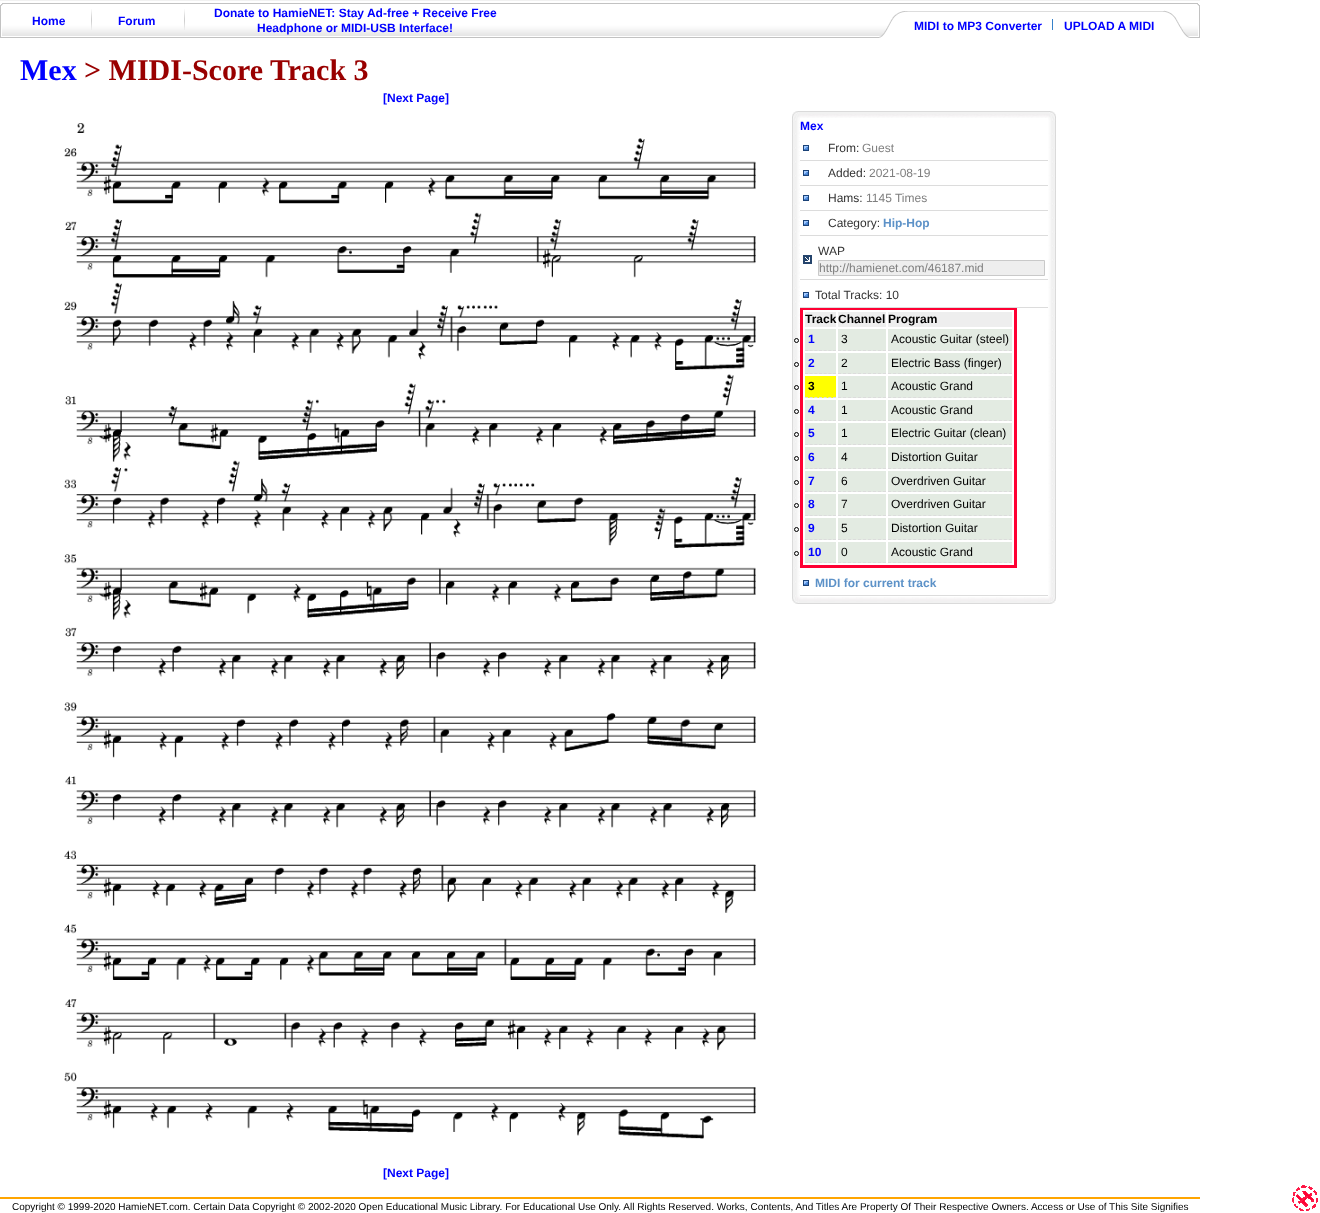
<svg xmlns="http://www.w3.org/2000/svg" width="1320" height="1213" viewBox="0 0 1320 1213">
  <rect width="100%" height="100%" fill="#fff"/>
  <image x="1292" y="1185" width="26" height="26" href="img/1.png"/>
  <path d="M0 0h1200v1H0z" fill="#f1f1f1"/>
  <image x="0" y="1" width="1200" height="37" href="img/2.png"/>
  <image x="0" y="3" width="3" height="34" href="img/3.png"/>
  <image x="91" y="9" width="1" height="21" href="img/4.png"/>
  <image x="184" y="9" width="1" height="21" href="img/4.png"/>
  <image x="879" y="10" width="310" height="28" href="img/5.png"/>
  <path d="M1052 19h1v11H1052z" fill="#3681c9"/>
  <image x="1189" y="3" width="11" height="35" href="img/6.png"/>
  <image x="51" y="120" width="705" height="1019" href="img/7.png"/>
  <image x="792" y="111" width="8" height="8" href="img/8.png"/>
  <image x="800" y="111" width="248" height="7" href="img/9.png"/>
  <image x="1048" y="111" width="8" height="8" href="img/10.png"/>
  <image x="792" y="119" width="8" height="477" href="img/11.png"/>
  <image x="803" y="145" width="6" height="6" href="img/12.png"/>
  <path d="M800 160h249v1H800z" fill="#dcdcdc"/>
  <image x="803" y="170" width="6" height="6" href="img/12.png"/>
  <path d="M800 185h249v1H800z" fill="#dcdcdc"/>
  <image x="803" y="195" width="6" height="6" href="img/12.png"/>
  <path d="M800 210h249v1H800z" fill="#dcdcdc"/>
  <image x="803" y="220" width="6" height="6" href="img/12.png"/>
  <path d="M800 235h249v1H800z" fill="#dcdcdc"/>
  <image x="803" y="255" width="9" height="9" href="img/13.png"/>
  <path d="M800 279h249v1H800z" fill="#dcdcdc"/>
  <path d="M818.5 260.5h226v15H818.5z" fill="#eee" stroke="#c9c9c9"/>
  <image x="803" y="292" width="6" height="6" href="img/12.png"/>
  <path d="M800 307h249v1H800z" fill="#dcdcdc"/>
  <path d="M800 308h217v2H800z" fill="#f03"/>
  <path d="M1014 308h3v260H1014z" fill="#f03"/>
  <path d="M800 565h217v3H800z" fill="#f03"/>
  <path d="M800 308h3v260H800z" fill="#f03"/>
  <path d="M805 312h31v15H805z" fill="#eee"/>
  <path d="M838 312h48v15H838z" fill="#eee"/>
  <path d="M888 312h124v15H888z" fill="#eee"/>
  <path d="M805 329h31v22H805z" fill="#e3ebe2"/>
  <path d="M805 350.5H836" fill="none" stroke="#dcdcdc" stroke-dasharray="3 1.67"/>
  <circle cx="796.5" cy="340.5" r="2" fill="none" stroke="#000"/>
  <path d="M838 329h48v22H838z" fill="#e3ebe2"/>
  <path d="M838 350.5H886" fill="none" stroke="#dcdcdc" stroke-dasharray="3 2"/>
  <path d="M888 329h124v22H888z" fill="#e3ebe2"/>
  <path d="M888 350.5H1012" fill="none" stroke="#dcdcdc" stroke-dasharray="3 2.04"/>
  <path d="M805 353h31v21H805z" fill="#e3ebe2"/>
  <path d="M805 373.5H836" fill="none" stroke="#dcdcdc" stroke-dasharray="3 1.67"/>
  <circle cx="796.5" cy="364.5" r="2" fill="none" stroke="#000"/>
  <path d="M838 353h48v21H838z" fill="#e3ebe2"/>
  <path d="M838 373.5H886" fill="none" stroke="#dcdcdc" stroke-dasharray="3 2"/>
  <path d="M888 353h124v21H888z" fill="#e3ebe2"/>
  <path d="M888 373.5H1012" fill="none" stroke="#dcdcdc" stroke-dasharray="3 2.04"/>
  <path d="M805 376h31v22H805z" fill="#ff0"/>
  <path d="M805 397.5H836" fill="none" stroke="#dcdcdc" stroke-dasharray="3 1.67"/>
  <circle cx="796.5" cy="387.5" r="2" fill="none" stroke="#000"/>
  <path d="M838 376h48v22H838z" fill="#e3ebe2"/>
  <path d="M838 397.5H886" fill="none" stroke="#dcdcdc" stroke-dasharray="3 2"/>
  <path d="M888 376h124v22H888z" fill="#e3ebe2"/>
  <path d="M888 397.5H1012" fill="none" stroke="#dcdcdc" stroke-dasharray="3 2.04"/>
  <path d="M805 400h31v21H805z" fill="#e3ebe2"/>
  <path d="M805 420.5H836" fill="none" stroke="#dcdcdc" stroke-dasharray="3 1.67"/>
  <circle cx="796.5" cy="411.5" r="2" fill="none" stroke="#000"/>
  <path d="M838 400h48v21H838z" fill="#e3ebe2"/>
  <path d="M838 420.5H886" fill="none" stroke="#dcdcdc" stroke-dasharray="3 2"/>
  <path d="M888 400h124v21H888z" fill="#e3ebe2"/>
  <path d="M888 420.5H1012" fill="none" stroke="#dcdcdc" stroke-dasharray="3 2.04"/>
  <path d="M805 423h31v22H805z" fill="#e3ebe2"/>
  <path d="M805 444.5H836" fill="none" stroke="#dcdcdc" stroke-dasharray="3 1.67"/>
  <circle cx="796.5" cy="434.5" r="2" fill="none" stroke="#000"/>
  <path d="M838 423h48v22H838z" fill="#e3ebe2"/>
  <path d="M838 444.5H886" fill="none" stroke="#dcdcdc" stroke-dasharray="3 2"/>
  <path d="M888 423h124v22H888z" fill="#e3ebe2"/>
  <path d="M888 444.5H1012" fill="none" stroke="#dcdcdc" stroke-dasharray="3 2.04"/>
  <path d="M805 447h31v22H805z" fill="#e3ebe2"/>
  <path d="M805 468.5H836" fill="none" stroke="#dcdcdc" stroke-dasharray="3 1.67"/>
  <circle cx="796.5" cy="458.5" r="2" fill="none" stroke="#000"/>
  <path d="M838 447h48v22H838z" fill="#e3ebe2"/>
  <path d="M838 468.5H886" fill="none" stroke="#dcdcdc" stroke-dasharray="3 2"/>
  <path d="M888 447h124v22H888z" fill="#e3ebe2"/>
  <path d="M888 468.5H1012" fill="none" stroke="#dcdcdc" stroke-dasharray="3 2.04"/>
  <path d="M805 471h31v21H805z" fill="#e3ebe2"/>
  <path d="M805 491.5H836" fill="none" stroke="#dcdcdc" stroke-dasharray="3 1.67"/>
  <circle cx="796.5" cy="482.5" r="2" fill="none" stroke="#000"/>
  <path d="M838 471h48v21H838z" fill="#e3ebe2"/>
  <path d="M838 491.5H886" fill="none" stroke="#dcdcdc" stroke-dasharray="3 2"/>
  <path d="M888 471h124v21H888z" fill="#e3ebe2"/>
  <path d="M888 491.5H1012" fill="none" stroke="#dcdcdc" stroke-dasharray="3 2.04"/>
  <path d="M805 494h31v22H805z" fill="#e3ebe2"/>
  <path d="M805 515.5H836" fill="none" stroke="#dcdcdc" stroke-dasharray="3 1.67"/>
  <circle cx="796.5" cy="505.5" r="2" fill="none" stroke="#000"/>
  <path d="M838 494h48v22H838z" fill="#e3ebe2"/>
  <path d="M838 515.5H886" fill="none" stroke="#dcdcdc" stroke-dasharray="3 2"/>
  <path d="M888 494h124v22H888z" fill="#e3ebe2"/>
  <path d="M888 515.5H1012" fill="none" stroke="#dcdcdc" stroke-dasharray="3 2.04"/>
  <path d="M805 518h31v22H805z" fill="#e3ebe2"/>
  <path d="M805 539.5H836" fill="none" stroke="#dcdcdc" stroke-dasharray="3 1.67"/>
  <circle cx="796.5" cy="529.5" r="2" fill="none" stroke="#000"/>
  <path d="M838 518h48v22H838z" fill="#e3ebe2"/>
  <path d="M838 539.5H886" fill="none" stroke="#dcdcdc" stroke-dasharray="3 2"/>
  <path d="M888 518h124v22H888z" fill="#e3ebe2"/>
  <path d="M888 539.5H1012" fill="none" stroke="#dcdcdc" stroke-dasharray="3 2.04"/>
  <path d="M805 542h31v21H805z" fill="#e3ebe2"/>
  <path d="M805 562.5H836" fill="none" stroke="#dcdcdc" stroke-dasharray="3 1.67"/>
  <circle cx="796.5" cy="553.5" r="2" fill="none" stroke="#000"/>
  <path d="M838 542h48v21H838z" fill="#e3ebe2"/>
  <path d="M838 562.5H886" fill="none" stroke="#dcdcdc" stroke-dasharray="3 2"/>
  <path d="M888 542h124v21H888z" fill="#e3ebe2"/>
  <path d="M888 562.5H1012" fill="none" stroke="#dcdcdc" stroke-dasharray="3 2.04"/>
  <image x="803" y="580" width="6" height="6" href="img/12.png"/>
  <path d="M800 595h249v1H800z" fill="#dcdcdc"/>
  <image x="1048" y="119" width="8" height="477" href="img/14.png"/>
  <image x="792" y="596" width="8" height="8" href="img/15.png"/>
  <image x="800" y="597" width="248" height="7" href="img/16.png"/>
  <image x="1048" y="596" width="8" height="8" href="img/17.png"/>
  <path d="M0 1197h1200v2H0z" fill="#ffa500"/>
  <g font-family="Liberation Sans" font-size="12" font-weight="bold" fill="#00f">
    <text x="32" y="25">Home</text>
    <text x="118" y="25">Forum</text>
    <text x="214" y="17">Donate to HamieNET: Stay Ad-free + Receive Free</text>
    <text x="257" y="32">Headphone or MIDI-USB Interface!</text>
    <text x="914" y="30">MIDI to MP3 Converter</text>
    <text x="1064" y="30">UPLOAD A MIDI</text>
  </g>
  <text x="20" y="80" font-family="Liberation Serif" font-size="30" font-weight="bold" fill="#00f">Mex</text>
  <text x="84" y="80" font-family="Liberation Serif" font-size="30" font-weight="bold" fill="#900">&gt; MIDI-Score Track 3</text>
  <g font-family="Liberation Sans" font-size="12" font-weight="bold" fill="#00f">
    <text x="383" y="102">[Next Page]</text>
    <text x="383" y="1177">[Next Page]</text>
    <text x="800" y="130">Mex</text>
  </g>
  <text x="828" y="152" font-family="Liberation Sans" font-size="12" fill="#333">From:</text>
  <text x="862" y="152" font-family="Liberation Sans" font-size="12" fill="#7f7f7f">Guest</text>
  <text x="828" y="177" font-family="Liberation Sans" font-size="12" fill="#333">Added:</text>
  <text x="869" y="177" font-family="Liberation Sans" font-size="12" fill="#7f7f7f">2021-08-19</text>
  <text x="828" y="202" font-family="Liberation Sans" font-size="12" fill="#333">Hams:</text>
  <text x="866" y="202" font-family="Liberation Sans" font-size="12" fill="#7f7f7f">1145 Times</text>
  <text x="828" y="227" font-family="Liberation Sans" font-size="12" fill="#333">Category:</text>
  <text x="883" y="227" font-family="Liberation Sans" font-size="12" font-weight="bold" fill="#5d92c8">Hip-Hop</text>
  <text x="818" y="255" font-family="Liberation Sans" font-size="12" fill="#333">WAP</text>
  <text x="819" y="272" font-family="Liberation Sans" font-size="12" fill="#7f7f7f">http://hamienet.com/46187.mid</text>
  <text x="815" y="299" font-family="Liberation Sans" font-size="12" fill="#333">Total Tracks: 10</text>
  <g font-family="Liberation Sans" font-size="12" font-weight="bold" fill="#000">
    <text x="805" y="323">Track</text>
    <text x="838" y="323">Channel</text>
    <text x="888" y="323">Program</text>
  </g>
  <text x="808" y="343" font-family="Liberation Sans" font-size="12" font-weight="bold" fill="#00f">1</text>
  <g font-family="Liberation Sans" font-size="12" fill="#000">
    <text x="841" y="343">3</text>
    <text x="891" y="343">Acoustic Guitar (steel)</text>
  </g>
  <text x="808" y="367" font-family="Liberation Sans" font-size="12" font-weight="bold" fill="#00f">2</text>
  <g font-family="Liberation Sans" font-size="12" fill="#000">
    <text x="841" y="367">2</text>
    <text x="891" y="367">Electric Bass (finger)</text>
  </g>
  <text x="808" y="390" font-family="Liberation Sans" font-size="12" font-weight="bold" fill="#000">3</text>
  <g font-family="Liberation Sans" font-size="12" fill="#000">
    <text x="841" y="390">1</text>
    <text x="891" y="390">Acoustic Grand</text>
  </g>
  <text x="808" y="414" font-family="Liberation Sans" font-size="12" font-weight="bold" fill="#00f">4</text>
  <g font-family="Liberation Sans" font-size="12" fill="#000">
    <text x="841" y="414">1</text>
    <text x="891" y="414">Acoustic Grand</text>
  </g>
  <text x="808" y="437" font-family="Liberation Sans" font-size="12" font-weight="bold" fill="#00f">5</text>
  <g font-family="Liberation Sans" font-size="12" fill="#000">
    <text x="841" y="437">1</text>
    <text x="891" y="437">Electric Guitar (clean)</text>
  </g>
  <text x="808" y="461" font-family="Liberation Sans" font-size="12" font-weight="bold" fill="#00f">6</text>
  <g font-family="Liberation Sans" font-size="12" fill="#000">
    <text x="841" y="461">4</text>
    <text x="891" y="461">Distortion Guitar</text>
  </g>
  <text x="808" y="485" font-family="Liberation Sans" font-size="12" font-weight="bold" fill="#00f">7</text>
  <g font-family="Liberation Sans" font-size="12" fill="#000">
    <text x="841" y="485">6</text>
    <text x="891" y="485">Overdriven Guitar</text>
  </g>
  <text x="808" y="508" font-family="Liberation Sans" font-size="12" font-weight="bold" fill="#00f">8</text>
  <g font-family="Liberation Sans" font-size="12" fill="#000">
    <text x="841" y="508">7</text>
    <text x="891" y="508">Overdriven Guitar</text>
  </g>
  <text x="808" y="532" font-family="Liberation Sans" font-size="12" font-weight="bold" fill="#00f">9</text>
  <g font-family="Liberation Sans" font-size="12" fill="#000">
    <text x="841" y="532">5</text>
    <text x="891" y="532">Distortion Guitar</text>
  </g>
  <text x="808" y="556" font-family="Liberation Sans" font-size="12" font-weight="bold" fill="#00f">10</text>
  <g font-family="Liberation Sans" font-size="12" fill="#000">
    <text x="841" y="556">0</text>
    <text x="891" y="556">Acoustic Grand</text>
  </g>
  <text x="815" y="587" font-family="Liberation Sans" font-size="12" font-weight="bold" fill="#5d92c8">MIDI for current track</text>
  <text x="12" y="1210" font-family="Liberation Sans" font-size="10" fill="#000">Copyright © 1999-2020 HamieNET.com. Certain Data Copyright © 2002-2020 Open Educational Music Library. For Educational Use Only. All Rights Reserved. Works, Contents, And Titles Are Property Of Their Respective Owners. Access or Use of This Site Signifies</text>
</svg>
